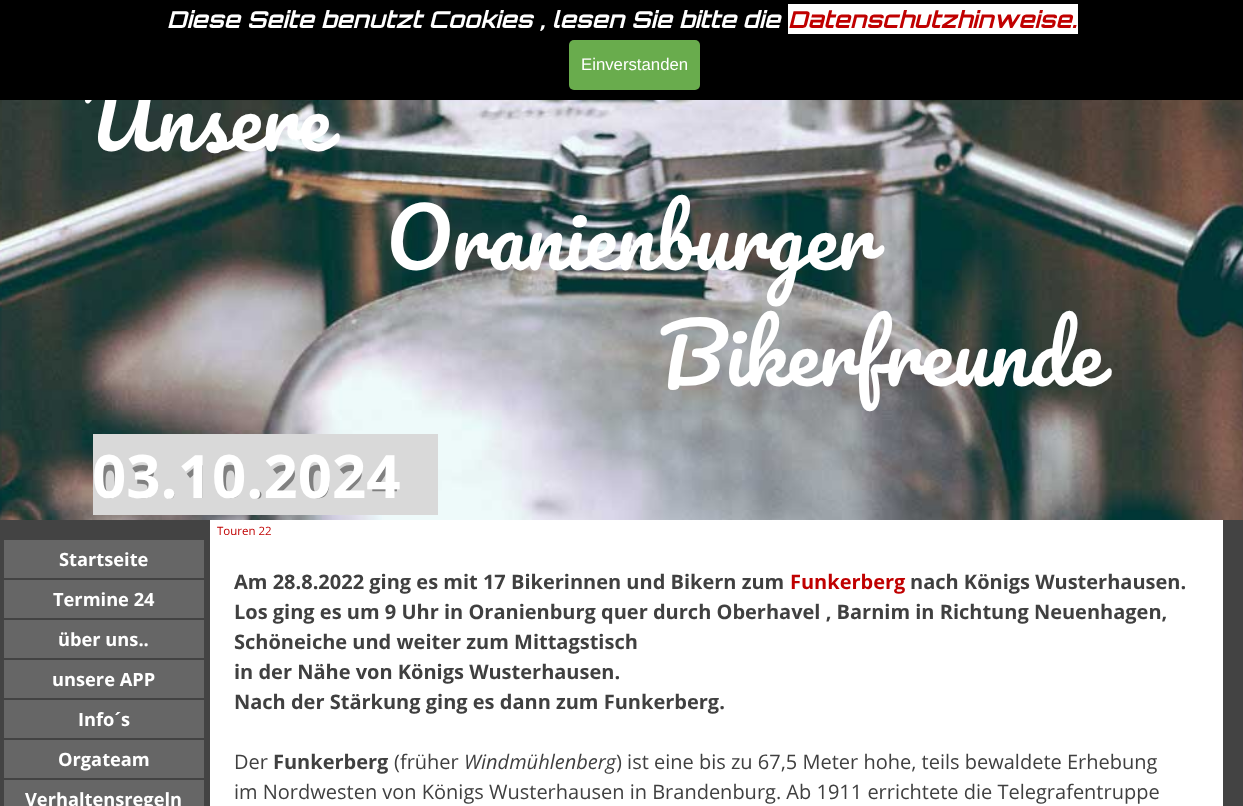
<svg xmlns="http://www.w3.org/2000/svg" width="1243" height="806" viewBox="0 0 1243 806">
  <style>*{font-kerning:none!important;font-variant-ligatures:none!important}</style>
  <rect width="100%" height="100%" fill="#434343"/>
  <image x="0" y="100" width="1243" height="420" href="img/1.png"/>
  <path d="M93 434h345v81H93z" fill="#d9d9d9"/>
  <path d="M210 520h1013v286H210z" fill="#fff"/>
  <path d="M4 540h200v38H4z" fill="#666"/>
  <path d="M4 580h200v38H4z" fill="#666"/>
  <path d="M4 620h200v38H4z" fill="#666"/>
  <path d="M4 660h200v38H4z" fill="#666"/>
  <path d="M4 700h200v38H4z" fill="#666"/>
  <path d="M4 740h200v38H4z" fill="#666"/>
  <path d="M4 780h200v26H4z" fill="#666"/>
  <text x="85" y="151" font-family="Pacifico" font-size="80" fill="#fff">Unsere</text>
  <path d="M0 0h1243v100H0z" fill="#000"/>
  <rect x="569" y="40" width="131" height="50" rx="5" fill="#69ac4d"/>
  <text x="581" y="70" font-family="Liberation Sans" font-size="16.75" fill="#fff">Einverstanden</text>
  <path d="M788 4h290v30H788z" fill="#fff"/>
  <text x="788" y="28" font-family="Orbitron" font-size="23.3" font-weight="bold" font-style="italic" fill="#c00000">Datenschutzhinweise.</text>
  <text x="167" y="28" font-family="Orbitron" font-size="23.3" font-weight="bold" font-style="italic" fill="#fff">Diese Seite benutzt Cookies , lesen Sie bitte die</text>
  <g font-family="Pacifico" font-size="80" fill="#fff">
    <text x="386" y="270">Oranienburger</text>
    <text x="659" y="386">Bikerfreunde</text>
  </g>
  <text x="97" y="498" font-family="Open Sans" font-size="45.75" font-weight="bold" letter-spacing="7.25" fill="#808080">03.10.2024</text>
  <text x="92" y="498" font-family="Open Sans" font-size="60" font-weight="bold" fill="#fff">03.10.2024</text>
  <g font-family="Open Sans" font-size="18.25" font-weight="bold" fill="#fff">
    <text x="59" y="566">Startseite</text>
    <text x="53" y="606">Termine 24</text>
    <text x="58" y="646">über uns..</text>
    <text x="52" y="686">unsere APP</text>
    <text x="78" y="726">Info´s</text>
    <text x="58" y="766">Orgateam</text>
    <text x="25" y="806">Verhaltensregeln</text>
  </g>
  <text x="217" y="535" font-family="Open Sans" font-size="11.5" fill="#c00000">Touren 22</text>
  <text x="234" y="589" font-family="Open Sans" font-size="20" font-weight="bold" fill="#404040">Am 28.8.2022 ging es mit 17 Bikerinnen und Bikern zum</text>
  <text x="790" y="589" font-family="Open Sans" font-size="20" font-weight="bold" fill="#c00000">Funkerberg</text>
  <g font-family="Open Sans" font-size="20" font-weight="bold" fill="#404040">
    <text x="910" y="589">nach Königs Wusterhausen.</text>
    <text x="234" y="619">Los ging es um 9 Uhr in Oranienburg quer durch Oberhavel , Barnim in Richtung Neuenhagen,</text>
    <text x="234" y="649">Schöneiche und weiter zum Mittagstisch</text>
    <text x="234" y="679">in der Nähe von Königs Wusterhausen.</text>
    <text x="234" y="709">Nach der Stärkung ging es dann zum Funkerberg.</text>
  </g>
  <text x="234" y="769" font-family="Open Sans" font-size="20" fill="#404040">Der</text>
  <text x="273" y="769" font-family="Open Sans" font-size="20" font-weight="bold" fill="#404040">Funkerberg</text>
  <text x="394" y="769" font-family="Open Sans" font-size="20" fill="#404040">(früher</text>
  <text x="464" y="769" font-family="Open Sans" font-size="20" font-style="italic" fill="#404040">Windmühlenberg</text>
  <g font-family="Open Sans" font-size="20" fill="#404040">
    <text x="616" y="769">) ist eine bis zu 67,5 Meter hohe, teils bewaldete Erhebung</text>
    <text x="234" y="799">im Nordwesten von Königs Wusterhausen in Brandenburg. Ab 1911 errichtete die Telegrafentruppe</text>
  </g>
</svg>
